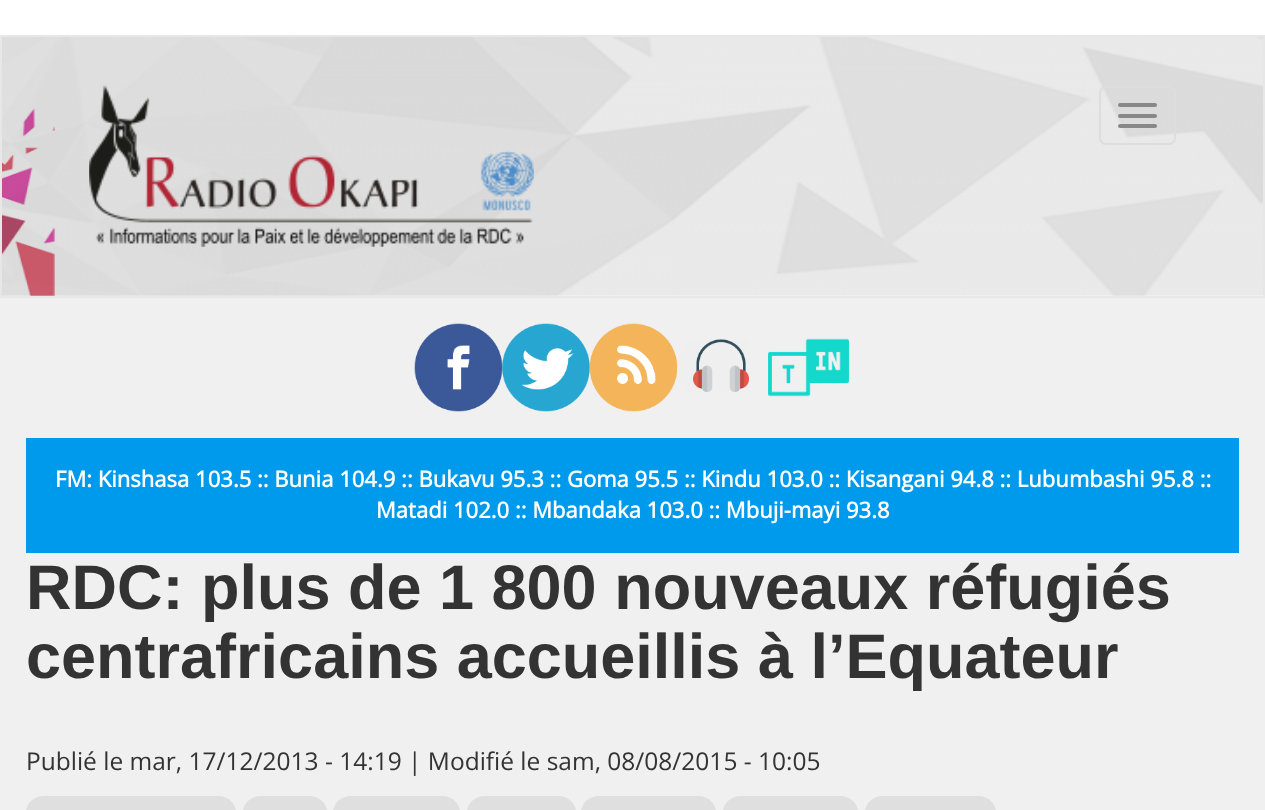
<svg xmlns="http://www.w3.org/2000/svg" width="1265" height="810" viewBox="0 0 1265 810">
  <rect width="100%" height="100%" fill="#fff"/>
  <image x="2" y="37" width="1261" height="259" href="img/1.png"/>
  <path d="M1 36h1263v261H1z" fill="none" stroke="#e7e7e7" stroke-width="2"/>
  <image x="89" y="85" width="445" height="162" href="img/2.png"/>
  <rect x="1100" y="87" width="75" height="57" rx="6" fill="none" stroke="#ddd" stroke-width="2"/>
  <rect x="1118" y="103" width="39" height="4" rx="2" fill="#888"/>
  <rect x="1118" y="114" width="39" height="4" rx="2" fill="#888"/>
  <rect x="1118" y="124" width="39" height="4" rx="2" fill="#888"/>
  <path d="M0 298h1265v512H0z" fill="#f0f0f0"/>
  <image x="414" y="323" width="89" height="89" href="img/3.png"/>
  <image x="502" y="323" width="88" height="89" href="img/4.png"/>
  <image x="589" y="323" width="89" height="89" href="img/5.png"/>
  <image x="677" y="339" width="72" height="53" href="img/6.png"/>
  <image x="768" y="338" width="81" height="59" href="img/7.png"/>
  <path d="M26 438h1213v115H26z" fill="#009aec"/>
  <rect x="26" y="796" width="210" height="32" rx="18" fill="#dfdfdf"/>
  <rect x="243" y="796" width="84" height="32" rx="18" fill="#dfdfdf"/>
  <rect x="333" y="796" width="127" height="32" rx="18" fill="#dfdfdf"/>
  <rect x="467" y="796" width="109" height="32" rx="18" fill="#dfdfdf"/>
  <rect x="581" y="796" width="135" height="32" rx="18" fill="#dfdfdf"/>
  <rect x="723" y="796" width="135" height="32" rx="18" fill="#dfdfdf"/>
  <rect x="865" y="796" width="131" height="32" rx="18" fill="#dfdfdf"/>
  <g font-family="Open Sans" font-size="22.05" font-weight="bold" fill="#fff">
    <text x="55" y="487">FM: Kinshasa 103.5 :: Bunia 104.9 :: Bukavu 95.3 :: Goma 95.5 :: Kindu 103.0 :: Kisangani 94.8 :: Lubumbashi 95.8 ::</text>
    <text x="376" y="518">Matadi 102.0 :: Mbandaka 103.0 :: Mbuji-mayi 93.8</text>
  </g>
  <g font-family="Liberation Sans" font-size="63" font-weight="bold" fill="#333">
    <text x="26" y="609">RDC: plus de 1 800 nouveaux réfugiés</text>
    <text x="26" y="678">centrafricains accueillis à l’Equateur</text>
  </g>
  <text x="26" y="770" font-family="Open Sans" font-size="24.5" fill="#333">Publié le mar, 17/12/2013 - 14:19 | Modifié le sam, 08/08/2015 - 10:05</text>
</svg>
